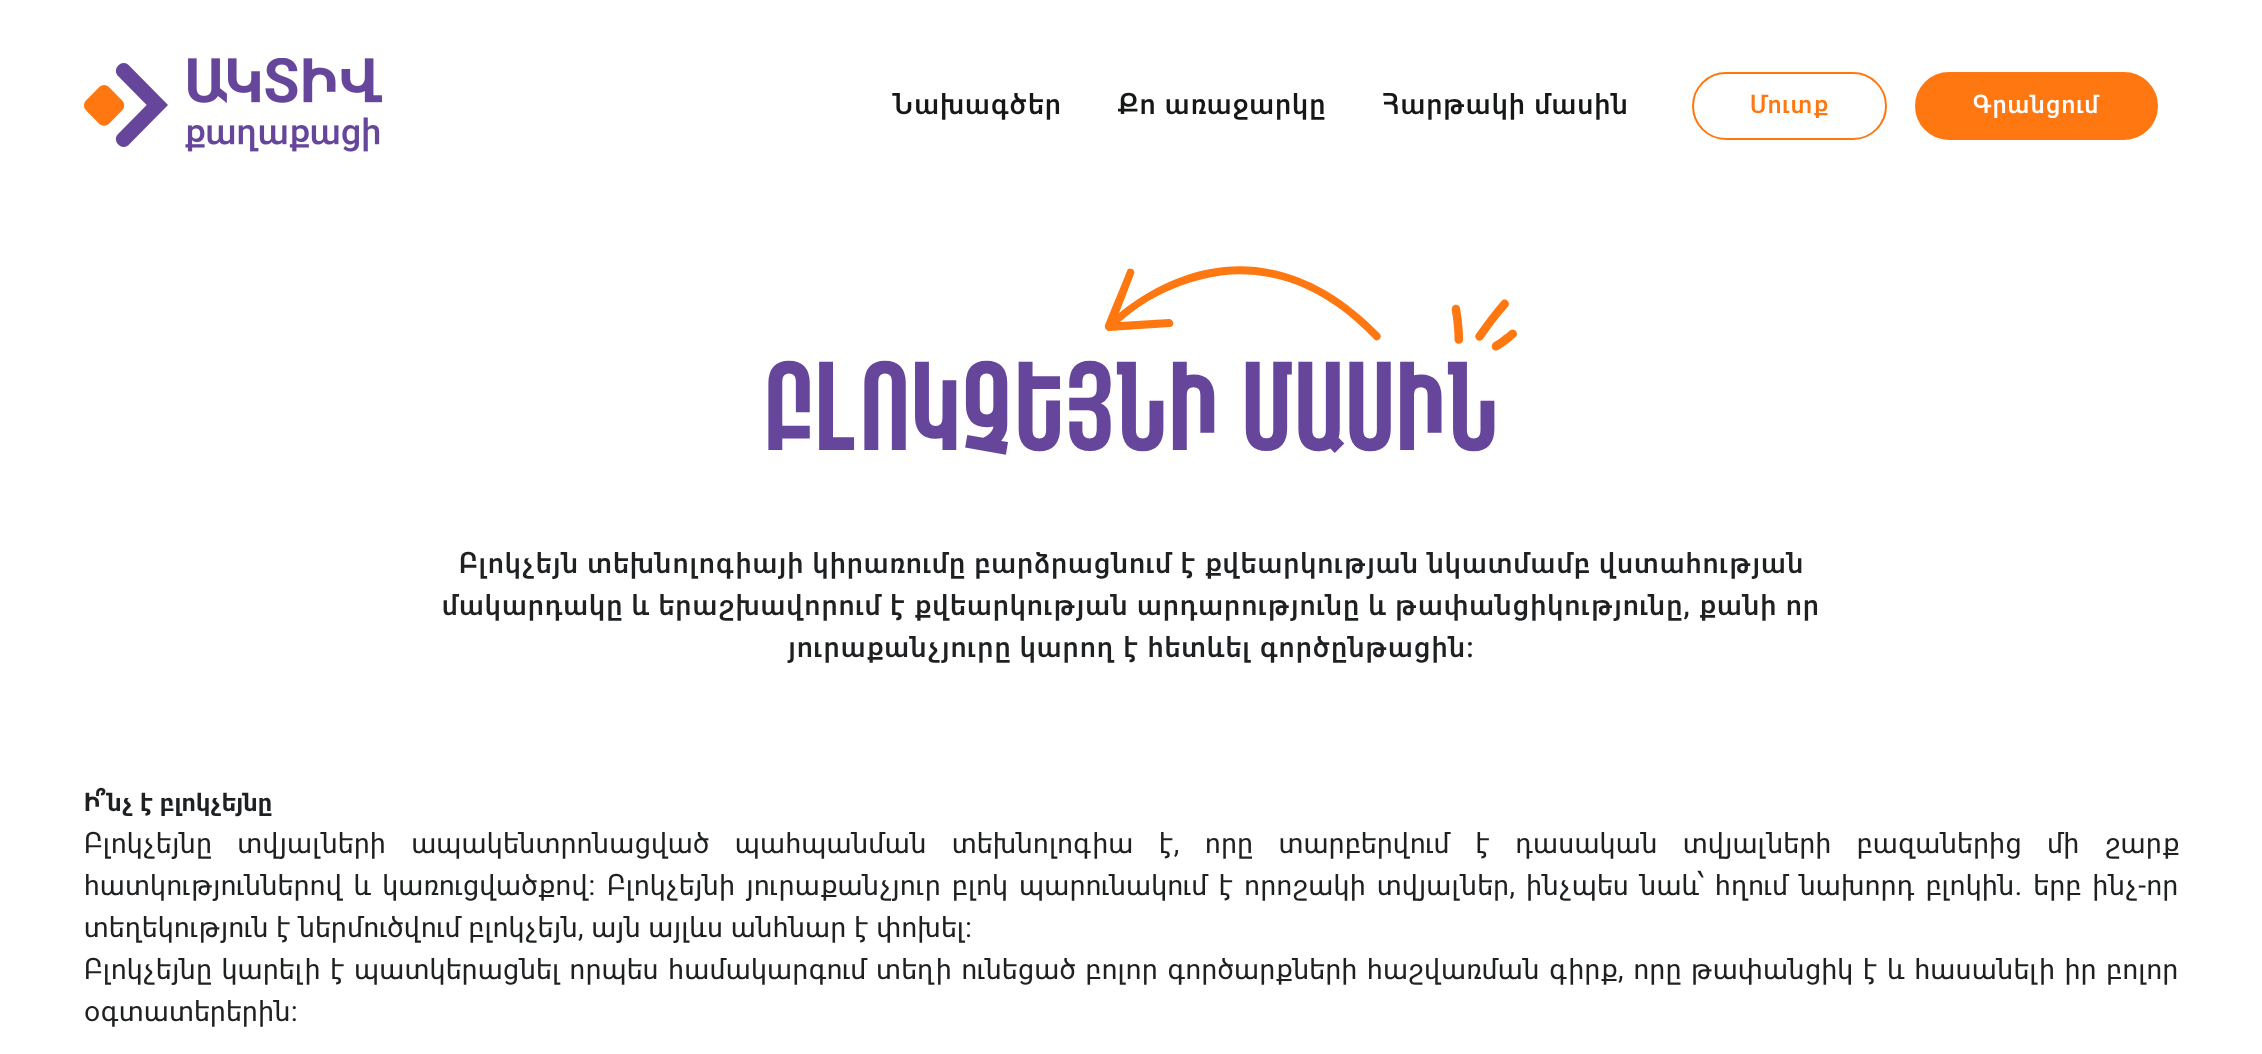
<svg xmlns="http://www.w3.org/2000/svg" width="2262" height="1054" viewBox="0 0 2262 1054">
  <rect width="100%" height="100%" fill="#fff"/>
  <image x="84" y="58" width="298" height="94" href="img/1.png"/>
  <rect x="1693" y="73" width="193" height="66" rx="33" fill="none" stroke="#ff7710" stroke-width="2"/>
  <rect x="1916" y="73" width="241" height="66" rx="33" fill="#ff7710" stroke="#ff7710" stroke-width="2"/>
  <path d="M1380 334C1301 252 1206 244 1119 313C1124 300 1129 287 1134 274C1136 269 1128 266 1127 271C1120 289 1112 307 1105 325C1104 328 1107 331 1109 331L1170 327C1175 327 1174 319 1169 319L1120 322C1143 301 1173 286 1203 279C1229 272 1256 273 1282 280C1318 290 1348 312 1374 339C1377 343 1383 338 1380 334Z" fill="#ff7710"/>
  <image x="1451" y="299" width="66" height="52" href="img/2.png"/>
  <g font-family="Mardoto" font-size="28" font-weight="500" letter-spacing="1.4" fill="#161717">
    <text x="892" y="114">Նախագծեր</text>
    <text x="1118" y="114">Քո առաջարկը</text>
    <text x="1382" y="114">Հարթակի մասին</text>
  </g>
  <text x="1750" y="113" font-family="Mardoto" font-size="24.5" font-weight="500" letter-spacing="1.4" fill="#ff7710">Մուտք</text>
  <text x="1973" y="113" font-family="Mardoto" font-size="24.5" font-weight="500" letter-spacing="1.4" fill="#fff">Գրանցում</text>
  <text x="764" y="450" font-family="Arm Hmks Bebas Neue" font-size="126" letter-spacing="0.56" fill="#66469b">ԲԼՈԿՉԵՅՆԻ ՄԱՍԻՆ</text>
  <g font-family="Mardoto" font-size="28" font-weight="500" letter-spacing="1.4" fill="#1e2022">
    <text x="459" y="573">Բլոկչեյն տեխնոլոգիայի կիրառումը բարձրացնում է քվեարկության նկատմամբ վստահության</text>
    <text x="442" y="615">մակարդակը և երաշխավորում է քվեարկության արդարությունը և թափանցիկությունը, քանի որ</text>
    <text x="788" y="657">յուրաքանչյուրը կարող է հետևել գործընթացին:</text>
  </g>
  <text x="84" y="811" font-family="Mardoto" font-size="24.5" font-weight="bold" letter-spacing="0.56" fill="#1e2022">Ի՞նչ է բլոկչեյնը</text>
  <g font-family="Mardoto" font-size="28" letter-spacing="0.56" fill="#1e2022">
    <text x="84" y="853" word-spacing="17.75">Բլոկչեյնը տվյալների ապակենտրոնացված պահպանման տեխնոլոգիա է, որը տարբերվում է դասական տվյալների բազաներից մի շարք</text>
    <text x="84" y="895" word-spacing="3.4">հատկություններով և կառուցվածքով:</text>
    <text x="607" y="895" word-spacing="3.4">Բլոկչեյնի յուրաքանչյուր բլոկ պարունակում է որոշակի տվյալներ, ինչպես նաև՝ հղում նախորդ բլոկին. երբ ինչ-որ</text>
    <text x="84" y="937">տեղեկություն է ներմուծվում բլոկչեյն, այն այլևս անհնար է փոխել։</text>
    <text x="84" y="979" word-spacing="1.9">Բլոկչեյնը կարելի է պատկերացնել որպես համակարգում տեղի ունեցած բոլոր գործարքների հաշվառման գիրք, որը թափանցիկ է և հասանելի իր բոլոր</text>
    <text x="84" y="1021">օգտատերերին։</text>
  </g>
</svg>
